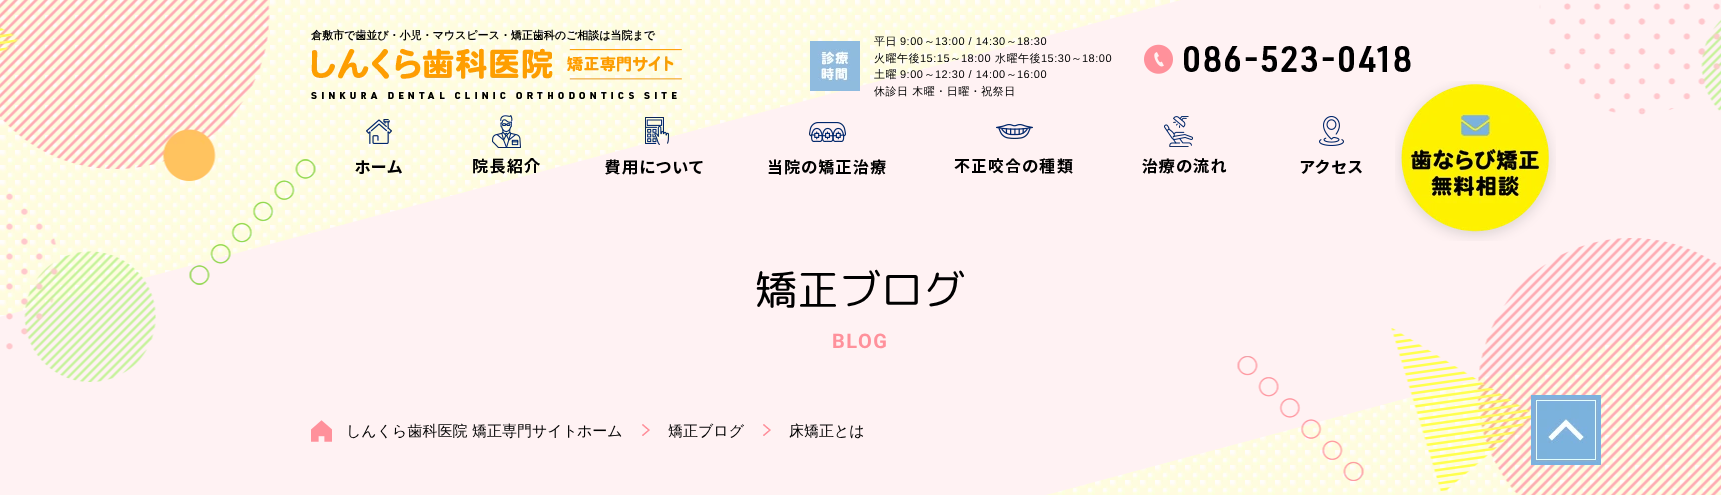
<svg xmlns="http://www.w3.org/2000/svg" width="1721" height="495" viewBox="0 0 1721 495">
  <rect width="100%" height="100%" fill="#fff"/>
  <image x="0" y="0" width="1721" height="495" href="img/1.png"/>
  <path d="M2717 47L-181 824L-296 396L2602-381Z" fill="#fff2f3"/>
  <image x="0" y="0" width="1721" height="495" href="img/2.png"/>
  <image x="311" y="48" width="371" height="51" href="img/3.png"/>
  <image x="810" y="41" width="50" height="50" href="img/4.png"/>
  <image x="1144" y="44" width="267" height="30" href="img/5.png"/>
  <image x="355" y="119" width="47" height="55" href="img/6.png"/>
  <image x="473" y="115" width="67" height="59" href="img/7.png"/>
  <image x="605" y="117" width="98" height="58" href="img/8.png"/>
  <image x="768" y="122" width="118" height="53" href="img/9.png"/>
  <image x="954" y="124" width="119" height="50" href="img/10.png"/>
  <image x="1142" y="116" width="85" height="58" href="img/11.png"/>
  <image x="1300" y="116" width="62" height="58" href="img/12.png"/>
  <image x="1395" y="81" width="161" height="160" href="img/13.png"/>
  <image x="311" y="420" width="21" height="22" href="img/14.png"/>
  <image x="642" y="424" width="8" height="12" href="img/15.png"/>
  <image x="763" y="424" width="8" height="12" href="img/15.png"/>
  <image x="1531" y="395" width="70" height="70" href="img/16.png"/>
  <text x="311" y="39" font-family="WenQuanYi Zen Hei" font-size="11" font-weight="bold" fill="#000">倉敷市で歯並び・小児・マウスピース・矯正歯科のご相談は当院まで</text>
  <text x="874" y="45" font-family="WenQuanYi Zen Hei" font-size="11" font-weight="500" letter-spacing="0.5" fill="#000">平日</text>
  <text x="900" y="45" font-family="Liberation Sans" font-size="11" letter-spacing="0.5" fill="#000">9:00</text>
  <text x="924" y="45" font-family="WenQuanYi Zen Hei" font-size="11" font-weight="500" letter-spacing="0.5" fill="#000">～</text>
  <text x="935" y="45" font-family="Liberation Sans" font-size="11" letter-spacing="0.5" fill="#000">13:00 / 14:30</text>
  <text x="1006" y="45" font-family="WenQuanYi Zen Hei" font-size="11" font-weight="500" letter-spacing="0.5" fill="#000">～</text>
  <text x="1017" y="45" font-family="Liberation Sans" font-size="11" letter-spacing="0.5" fill="#000">18:30</text>
  <text x="874" y="62" font-family="WenQuanYi Zen Hei" font-size="11" font-weight="500" letter-spacing="0.5" fill="#000">火曜午後</text>
  <text x="920" y="62" font-family="Liberation Sans" font-size="11" letter-spacing="0.5" fill="#000">15:15</text>
  <text x="950" y="62" font-family="WenQuanYi Zen Hei" font-size="11" font-weight="500" letter-spacing="0.5" fill="#000">～</text>
  <text x="961" y="62" font-family="Liberation Sans" font-size="11" letter-spacing="0.5" fill="#000">18:00</text>
  <text x="995" y="62" font-family="WenQuanYi Zen Hei" font-size="11" font-weight="500" letter-spacing="0.5" fill="#000">水曜午後</text>
  <text x="1041" y="62" font-family="Liberation Sans" font-size="11" letter-spacing="0.5" fill="#000">15:30</text>
  <text x="1071" y="62" font-family="WenQuanYi Zen Hei" font-size="11" font-weight="500" letter-spacing="0.5" fill="#000">～</text>
  <text x="1082" y="62" font-family="Liberation Sans" font-size="11" letter-spacing="0.5" fill="#000">18:00</text>
  <text x="874" y="78" font-family="WenQuanYi Zen Hei" font-size="11" font-weight="500" letter-spacing="0.5" fill="#000">土曜</text>
  <text x="900" y="78" font-family="Liberation Sans" font-size="11" letter-spacing="0.5" fill="#000">9:00</text>
  <text x="924" y="78" font-family="WenQuanYi Zen Hei" font-size="11" font-weight="500" letter-spacing="0.5" fill="#000">～</text>
  <text x="935" y="78" font-family="Liberation Sans" font-size="11" letter-spacing="0.5" fill="#000">12:30 / 14:00</text>
  <text x="1006" y="78" font-family="WenQuanYi Zen Hei" font-size="11" font-weight="500" letter-spacing="0.5" fill="#000">～</text>
  <text x="1017" y="78" font-family="Liberation Sans" font-size="11" letter-spacing="0.5" fill="#000">16:00</text>
  <text x="874" y="95" font-family="WenQuanYi Zen Hei" font-size="11" font-weight="500" letter-spacing="0.5" fill="#000">休診日 木曜・日曜・祝祭日</text>
  <text x="755" y="305" font-family="'Rounded Mplus 1c'" font-size="42" fill="#000">矯正ブログ</text>
  <text x="832" y="348" font-family="Roboto" font-size="20" font-weight="bold" letter-spacing="1.5" fill="#ff919b">BLOG</text>
  <g font-family="WenQuanYi Zen Hei" font-size="15" font-weight="500" fill="#000">
    <text x="346" y="436">しんくら歯科医院 矯正専門サイト</text>
    <text x="577" y="436">ホーム</text>
    <text x="668" y="436">矯正ブログ</text>
    <text x="789" y="436">床矯正とは</text>
  </g>
</svg>
